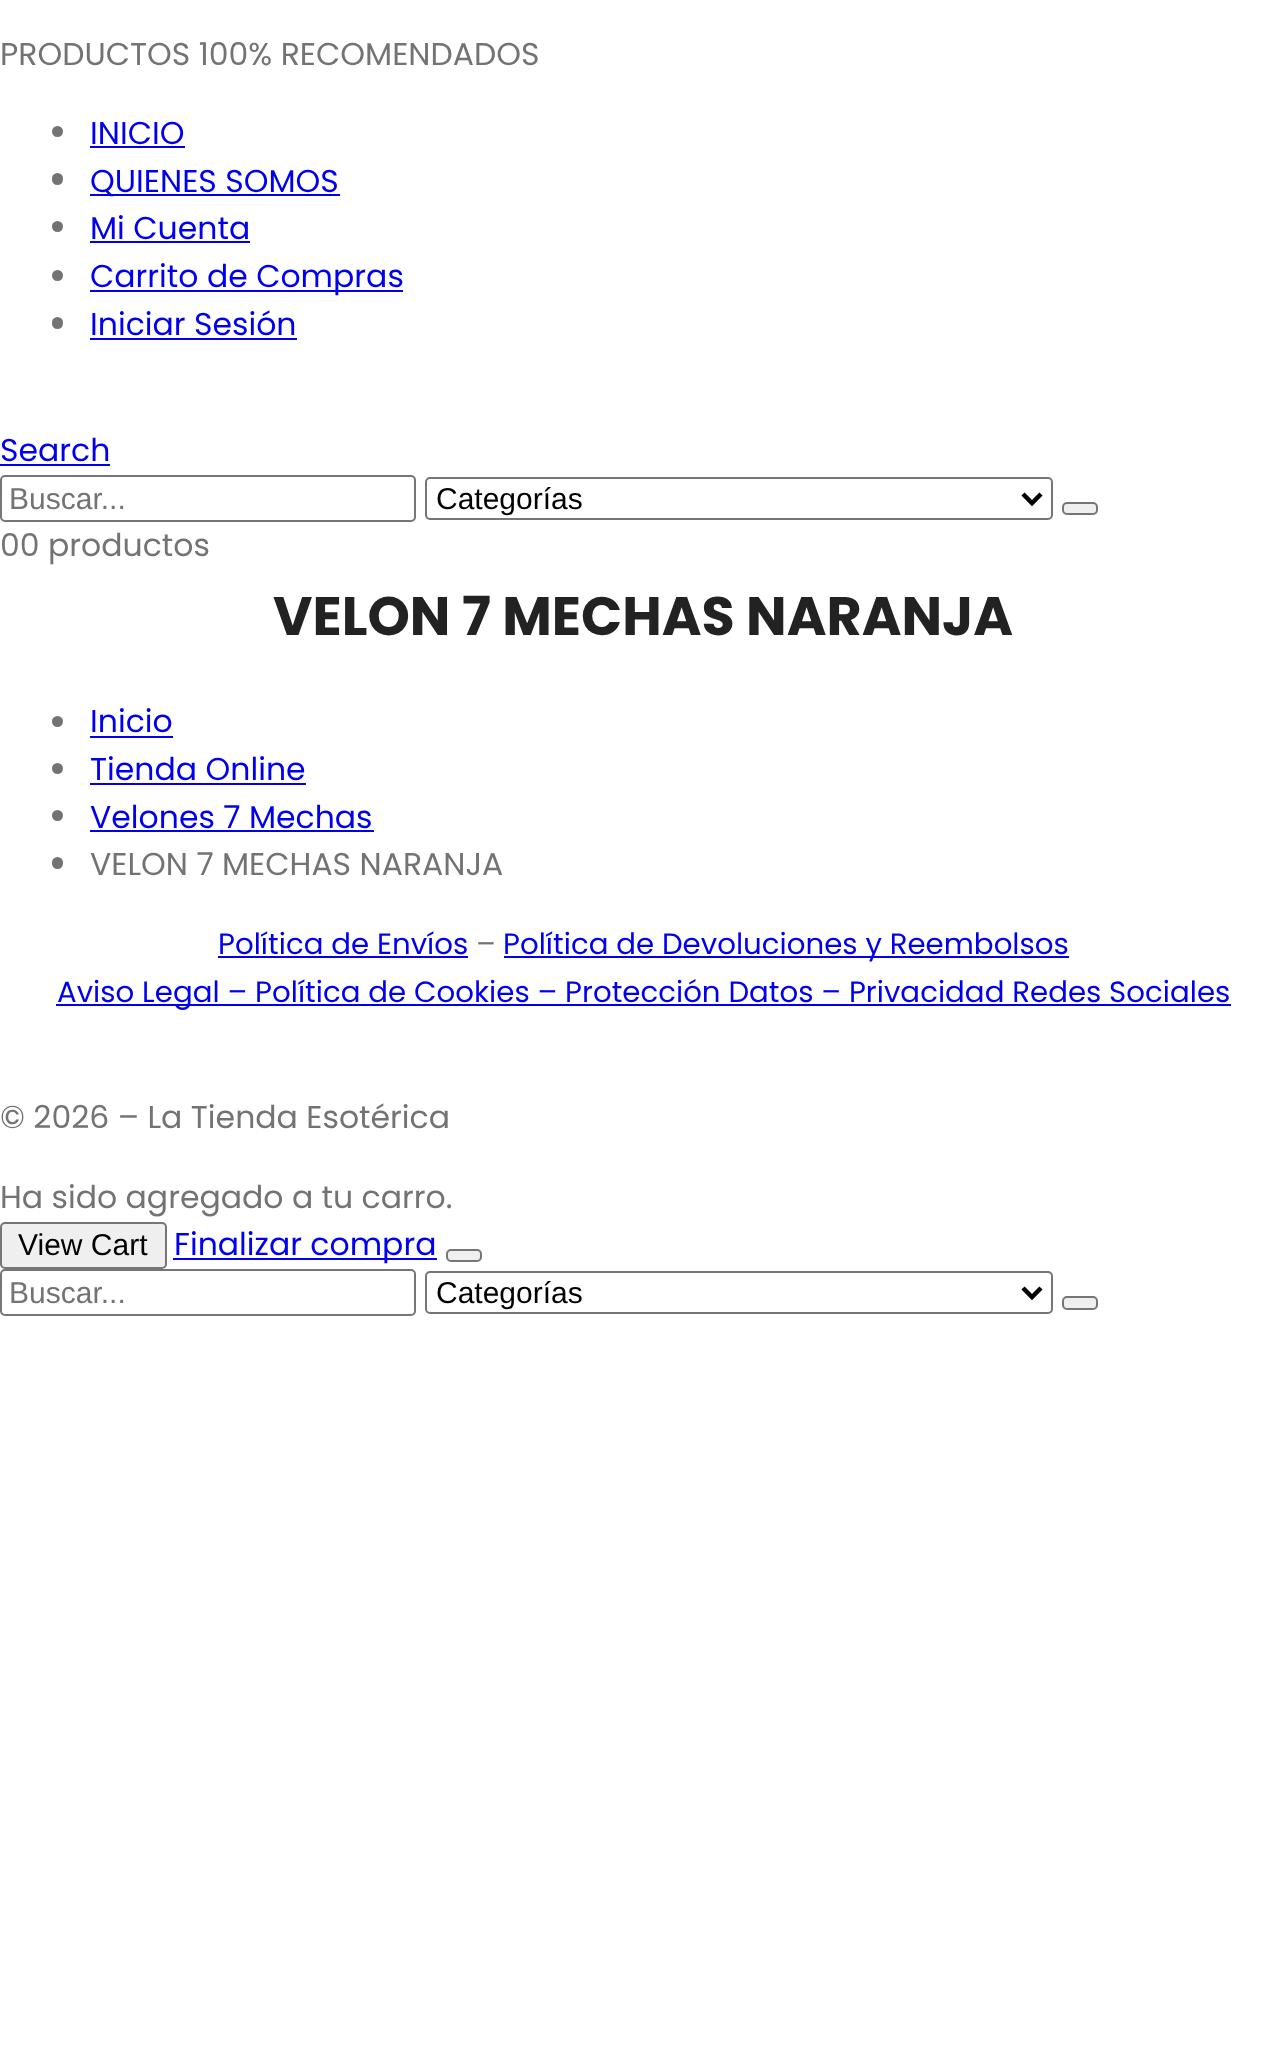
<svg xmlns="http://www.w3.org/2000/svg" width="1285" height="2066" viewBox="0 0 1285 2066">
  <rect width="100%" height="100%" fill="#fff"/>
  <circle cx="57.5" cy="131.5" r="5.5" fill="#747373"/>
  <path d="M90 146h95v2H90z" fill="#00e"/>
  <rect x="52" y="173" width="11" height="12" rx="5.5" fill="#747373"/>
  <path d="M90 194h250v2H90z" fill="#00e"/>
  <circle cx="57.5" cy="226.5" r="5.5" fill="#747373"/>
  <path d="M90 241h160v2H90z" fill="#00e"/>
  <circle cx="57.5" cy="275.5" r="5.5" fill="#747373"/>
  <path d="M90 290h313v2H90z" fill="#00e"/>
  <rect x="52" y="317" width="11" height="12" rx="5.5" fill="#747373"/>
  <path d="M90 338h207v2H90z" fill="#00e"/>
  <path d="M0 464h110v2H0z" fill="#00e"/>
  <rect x="1" y="476" width="414" height="45" rx="4" fill="none" stroke="#767676" stroke-width="2"/>
  <rect x="426" y="478" width="626" height="41" rx="4" fill="none" stroke="#767676" stroke-width="2"/>
  <path d="M1023 494L1032 503L1041 494" fill="none" stroke="#000" stroke-width="4.5"/>
  <rect x="1063" y="503" width="34" height="11" rx="4" fill="#efefef" stroke="#767676" stroke-width="2"/>
  <circle cx="57.5" cy="721.5" r="5.5" fill="#747373"/>
  <path d="M90 736h83v2H90z" fill="#00e"/>
  <circle cx="57.5" cy="768.5" r="5.5" fill="#747373"/>
  <path d="M90 783h216v2H90z" fill="#00e"/>
  <circle cx="57.5" cy="815.5" r="5.5" fill="#747373"/>
  <path d="M90 830h284v2H90z" fill="#00e"/>
  <rect x="52" y="857" width="11" height="12" rx="5.5" fill="#747373"/>
  <path d="M218 956h250v2H218z" fill="#00e"/>
  <path d="M504 956h565v2H504z" fill="#00e"/>
  <path d="M56 1004h1175v2H56z" fill="#00e"/>
  <rect x="1" y="1223" width="165" height="45" rx="4" fill="#efefef" stroke="#767676" stroke-width="2"/>
  <path d="M173 1258h264v2H173z" fill="#00e"/>
  <rect x="447" y="1250" width="34" height="11" rx="4" fill="#efefef" stroke="#767676" stroke-width="2"/>
  <rect x="1" y="1270" width="414" height="45" rx="4" fill="none" stroke="#767676" stroke-width="2"/>
  <rect x="426" y="1272" width="626" height="41" rx="4" fill="none" stroke="#767676" stroke-width="2"/>
  <path d="M1023 1288L1032 1297L1041 1288" fill="none" stroke="#000" stroke-width="4.5"/>
  <rect x="1063" y="1297" width="34" height="12" rx="4" fill="#efefef" stroke="#767676" stroke-width="2"/>
  <text x="0" y="65" font-family="Poppins" font-size="31.5" fill="#747373">PRODUCTOS 100% RECOMENDADOS</text>
  <g font-family="Poppins" font-size="31.5" fill="#00e">
    <text x="90" y="144">INICIO</text>
    <text x="90" y="192">QUIENES SOMOS</text>
    <text x="90" y="239">Mi Cuenta</text>
    <text x="90" y="287">Carrito de Compras</text>
    <text x="90" y="335">Iniciar Sesión</text>
    <text x="0" y="461">Search</text>
  </g>
  <text x="9" y="509" font-family="Liberation Sans" font-size="30" fill="#747373">Buscar...</text>
  <text x="436" y="509" font-family="Liberation Sans" font-size="30" fill="#000">Categorías</text>
  <text x="0" y="556" font-family="Poppins" font-size="31.5" fill="#747373">00 productos</text>
  <text x="273" y="635" font-family="Poppins" font-size="54" font-weight="bold" fill="#222">VELON 7 MECHAS NARANJA</text>
  <g font-family="Poppins" font-size="31.5" fill="#00e">
    <text x="90" y="732">Inicio</text>
    <text x="90" y="780">Tienda Online</text>
    <text x="90" y="828">Velones 7 Mechas</text>
  </g>
  <text x="90" y="875" font-family="Poppins" font-size="31.5" fill="#747373">VELON 7 MECHAS NARANJA</text>
  <text x="218" y="954" font-family="Poppins" font-size="29.25" fill="#00e">Política de Envíos</text>
  <text x="476" y="954" font-family="Poppins" font-size="29.25" fill="#747373">–</text>
  <g font-family="Poppins" font-size="29.25" fill="#00e">
    <text x="503" y="954">Política de Devoluciones y Reembolsos</text>
    <text x="57" y="1002">Aviso Legal – Política de Cookies – Protección Datos – Privacidad Redes Sociales</text>
  </g>
  <g font-family="Poppins" font-size="31.5" fill="#747373">
    <text x="0" y="1128">© 2026 – La Tienda Esotérica</text>
    <text x="0" y="1208">Ha sido agregado a tu carro.</text>
  </g>
  <text x="18" y="1255" font-family="Liberation Sans" font-size="30" fill="#000">View Cart</text>
  <text x="174" y="1255" font-family="Poppins" font-size="31.5" fill="#00e">Finalizar compra</text>
  <text x="9" y="1303" font-family="Liberation Sans" font-size="30" fill="#747373">Buscar...</text>
  <text x="436" y="1303" font-family="Liberation Sans" font-size="30" fill="#000">Categorías</text>
</svg>
